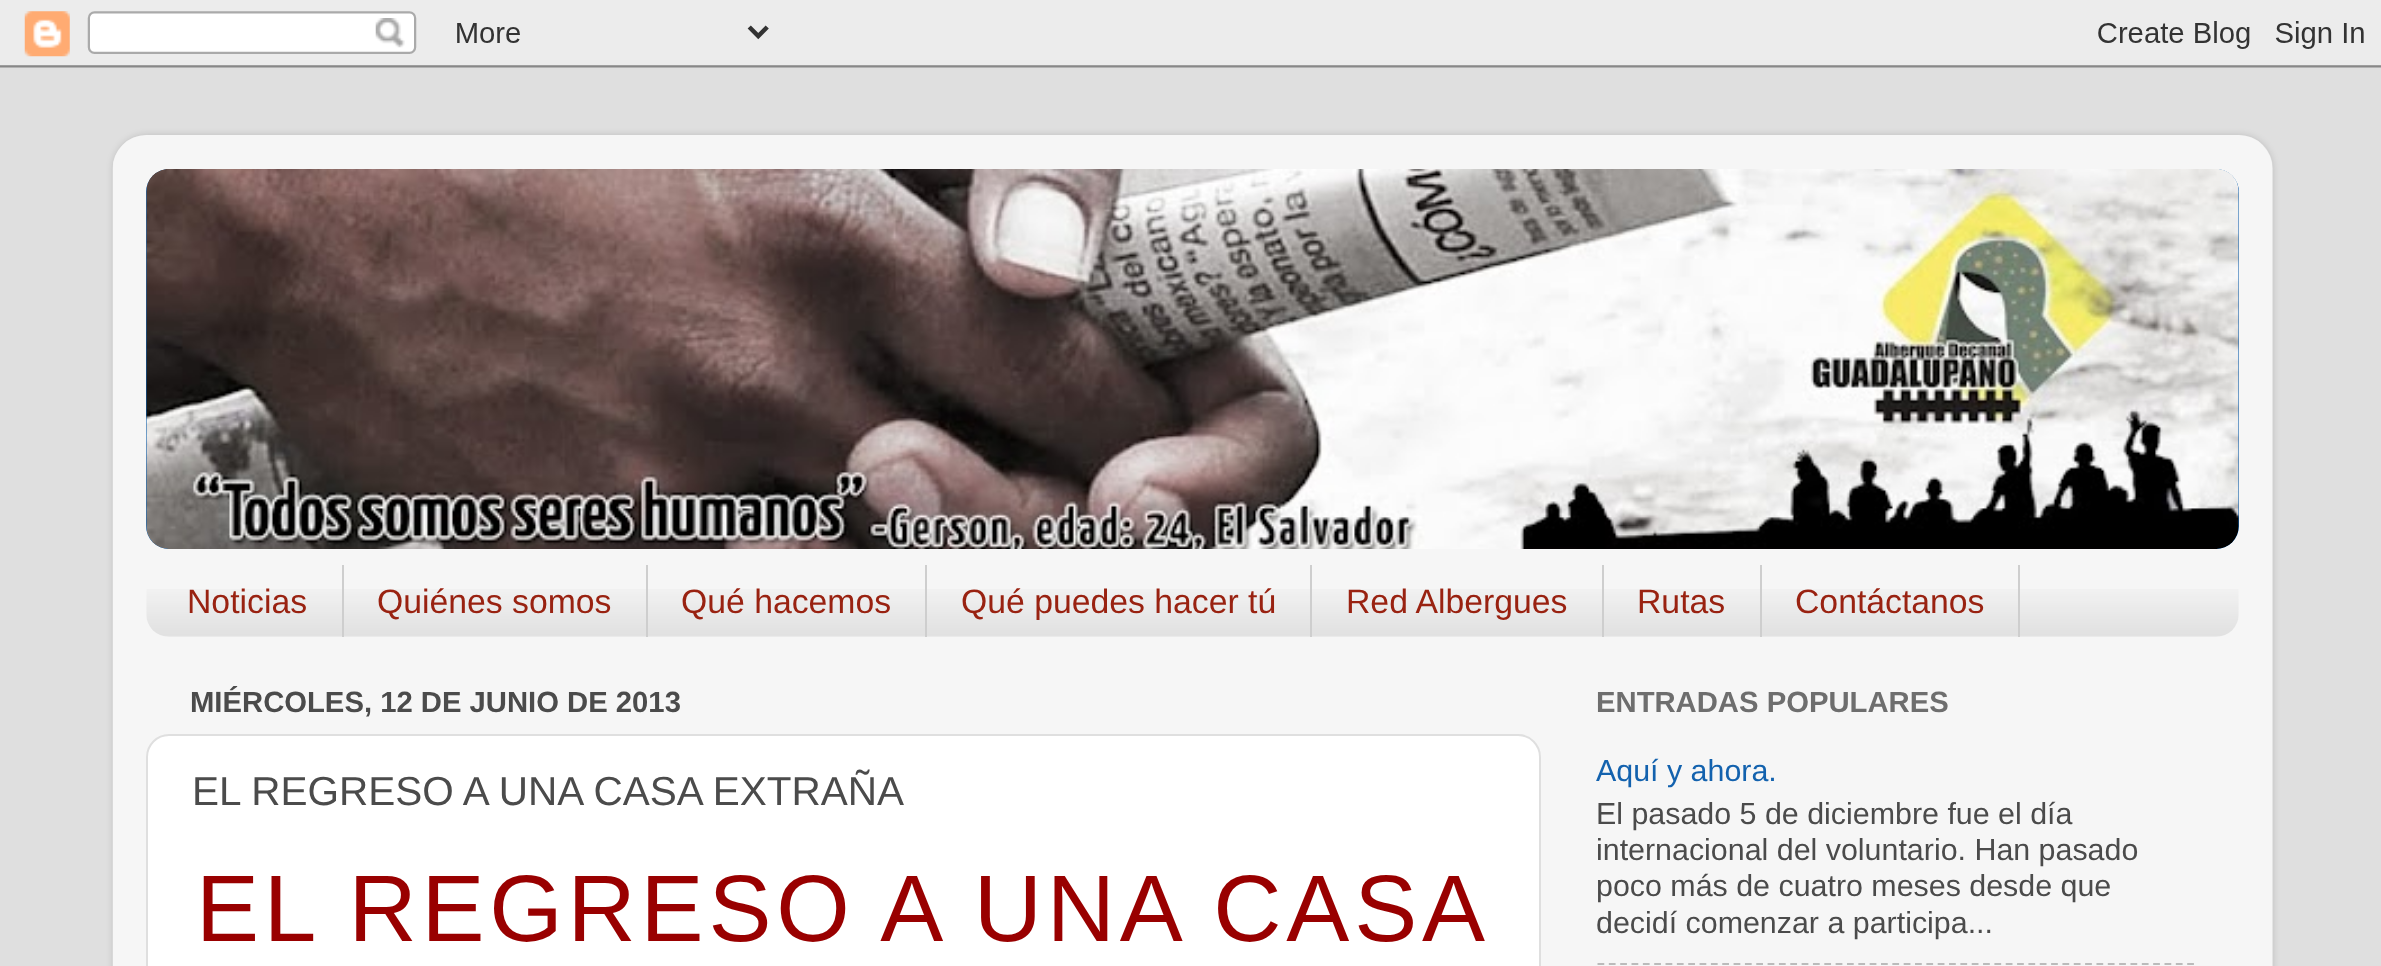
<svg xmlns="http://www.w3.org/2000/svg" width="2381" height="966" viewBox="0 0 2381 966">
  <defs>
    <clipPath id="clip1"><path d="M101 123H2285V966H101ZM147 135H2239C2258 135 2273 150 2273 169V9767C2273 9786 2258 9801 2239 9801H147C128 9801 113 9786 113 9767V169C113 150 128 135 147 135Z" clip-rule="evenodd"/></clipPath>
  </defs>
  <rect width="100%" height="100%" fill="#dfdfdf"/>
  <image x="0" y="0" width="2381" height="68" href="img/1.png"/>
  <g clip-path="url(#clip1)">
    <rect x="113" y="135" width="2160" height="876" rx="34" fill="#00000026" filter="blur(3.5px)"/>
  </g>
  <image x="112" y="135" width="2161" height="831" href="img/2.png"/>
  <rect x="146" y="169" width="2093" height="380" rx="23" fill="#1362ae"/>
  <image x="146" y="169" width="2093" height="163" href="img/3.png"/>
  <image x="146" y="169" width="2093" height="380" href="img/4.png"/>
  <image x="146" y="589" width="2093" height="48" href="img/5.png"/>
  <path d="M342 565h2v72H342z" fill="#cecece"/>
  <path d="M646 565h2v72H646z" fill="#cecece"/>
  <path d="M925 565h2v72H925z" fill="#cecece"/>
  <path d="M1310 565h2v72H1310z" fill="#cecece"/>
  <path d="M1602 565h2v72H1602z" fill="#cecece"/>
  <path d="M1760 565h2v72H1760z" fill="#cecece"/>
  <path d="M2018 565h2v72H2018z" fill="#cecece"/>
  <rect x="147" y="735" width="1393" height="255" rx="22" fill="#fff" stroke="#dfdfdf" stroke-width="2"/>
  <path d="M1597.5 964H2194" fill="none" stroke="#bbb" stroke-width="2.2" stroke-dasharray="6.75 4.59"/>
  <g font-family="Liberation Sans" font-size="33.75" fill="#921">
    <text x="187" y="613">Noticias</text>
    <text x="377" y="613">Quiénes somos</text>
    <text x="681" y="613">Qué hacemos</text>
    <text x="961" y="613">Qué puedes hacer tú</text>
    <text x="1346" y="613">Red Albergues</text>
    <text x="1637" y="613">Rutas</text>
    <text x="1795" y="613">Contáctanos</text>
  </g>
  <text x="190" y="712" font-family="Liberation Sans" font-size="29.25" font-weight="bold" fill="#4b4b4b">MIÉRCOLES, 12 DE JUNIO DE 2013</text>
  <text x="192" y="805" font-family="Liberation Sans" font-size="40.5" fill="#4b4b4b">EL REGRESO A UNA CASA EXTRAÑA</text>
  <text x="196" y="941" font-family="Liberation Sans" font-size="94.5" letter-spacing="4.75" fill="#900">EL REGRESO A UNA CASA</text>
  <text x="1596" y="712" font-family="Liberation Sans" font-size="29.25" font-weight="bold" fill="#6e6e6e">ENTRADAS POPULARES</text>
  <text x="1596" y="781" font-family="Liberation Sans" font-size="30.4" fill="#1362ae">Aquí y ahora.</text>
  <g font-family="Liberation Sans" font-size="30.4" fill="#4b4b4b">
    <text x="1596" y="824">El pasado 5 de diciembre fue el día</text>
    <text x="1596" y="860">internacional del voluntario. Han pasado</text>
    <text x="1596" y="896">poco más de cuatro meses desde que</text>
    <text x="1596" y="933">decidí comenzar a participa...</text>
  </g>
</svg>
